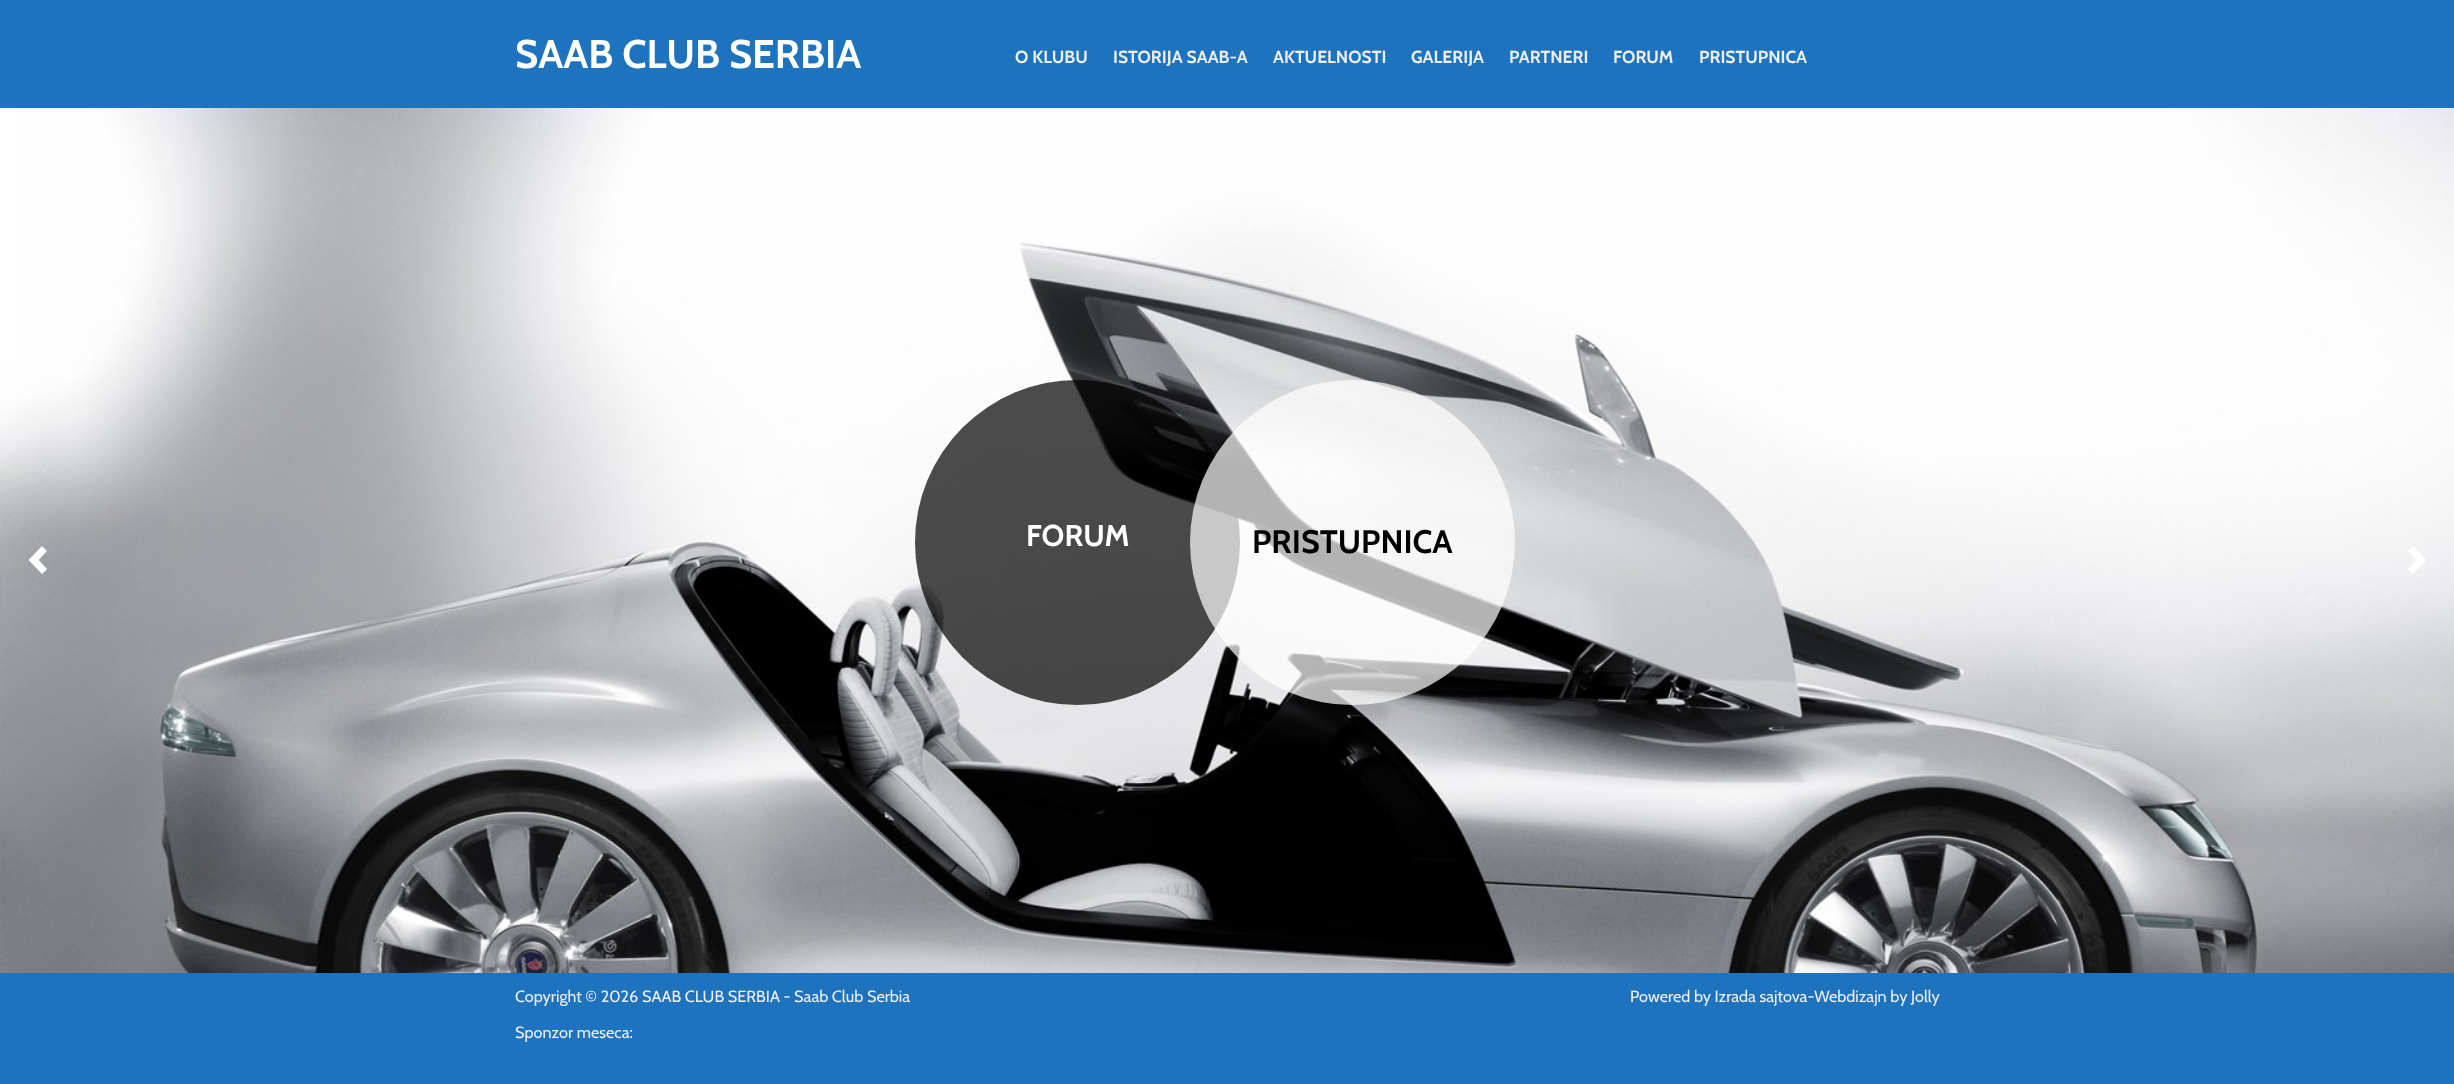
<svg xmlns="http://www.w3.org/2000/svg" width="2454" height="1084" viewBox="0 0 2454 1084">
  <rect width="100%" height="100%" fill="#fff"/>
  <path d="M0 0h2454v108H0z" fill="#1e73be"/>
  <image x="0" y="108" width="2454" height="865" href="img/1.png"/>
  <circle cx="1077.5" cy="542.5" r="162.5" fill="#000000b3"/>
  <circle cx="1352.5" cy="542.5" r="162.5" fill="#ffffffb3"/>
  <path d="M28.5 560L42 546L47 551L38.5 560L47 569L42 574Z" fill="#fff"/>
  <path d="M2408 569L2413 574L2426.5 560L2413 546L2408 551L2416.5 560Z" fill="#fff"/>
  <path d="M0 973h2454v111H0z" fill="#1e73be"/>
  <text x="515" y="68" font-family="Cabin" font-size="40" font-weight="bold" fill="#fff">SAAB CLUB SERBIA</text>
  <g font-family="Cabin" font-size="17.5" font-weight="bold" fill="#eee">
    <text x="1015" y="63">O KLUBU</text>
    <text x="1113" y="63">ISTORIJA SAAB-A</text>
    <text x="1273" y="63">AKTUELNOSTI</text>
    <text x="1411" y="63">GALERIJA</text>
    <text x="1509" y="63">PARTNERI</text>
    <text x="1613" y="63">FORUM</text>
    <text x="1699" y="63">PRISTUPNICA</text>
  </g>
  <text x="1026" y="546" font-family="Cabin" font-size="30" font-weight="bold" fill="#fff">FORUM</text>
  <text x="1252" y="553" font-family="Cabin" font-size="32.5" font-weight="bold" fill="#000">PRISTUPNICA</text>
  <g font-family="Cabin" font-size="16.25" fill="#eee">
    <text x="515" y="1002">Copyright © 2026 SAAB CLUB SERBIA - Saab Club Serbia</text>
    <text x="515" y="1038">Sponzor meseca:</text>
    <text x="1630" y="1002">Powered by Izrada sajtova-Webdizajn by Jolly</text>
  </g>
</svg>
